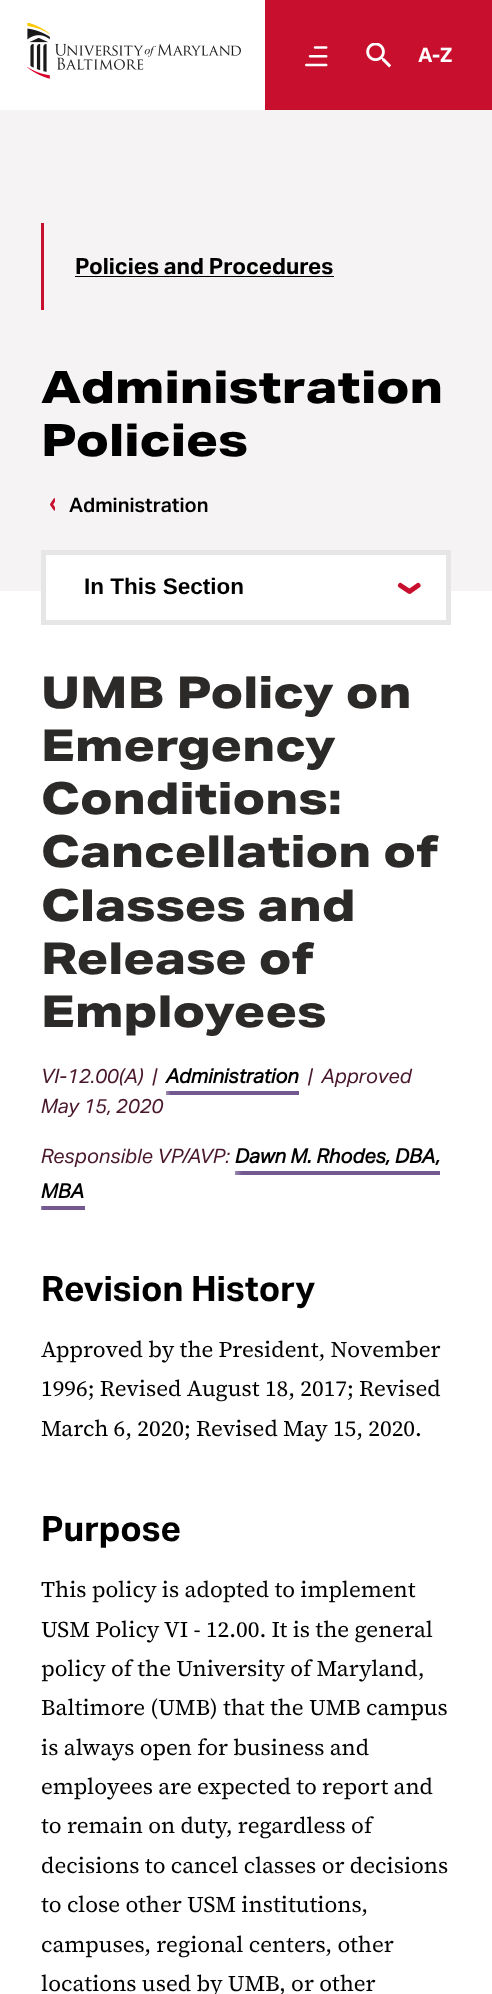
<svg xmlns="http://www.w3.org/2000/svg" width="492" height="1994" viewBox="0 0 492 1994">
  <defs>
    <linearGradient id="g1" gradientUnits="userSpaceOnUse" x1="14" y1="1093" x2="299" y2="1093"><stop offset="0" stop-color="#c8102e"/><stop offset="0.45" stop-color="#c8102e"/><stop offset="0.5" stop-color="#fff"/><stop offset="0.55" stop-color="#735990"/></linearGradient>
    <linearGradient id="g2" gradientUnits="userSpaceOnUse" x1="-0.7" y1="1173" x2="440" y2="1173"><stop offset="0" stop-color="#c8102e"/><stop offset="0.45" stop-color="#c8102e"/><stop offset="0.5" stop-color="#fff"/><stop offset="0.55" stop-color="#735990"/></linearGradient>
    <linearGradient id="g3" gradientUnits="userSpaceOnUse" x1="-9" y1="1208" x2="85" y2="1208"><stop offset="0" stop-color="#c8102e"/><stop offset="0.45" stop-color="#c8102e"/><stop offset="0.5" stop-color="#fff"/><stop offset="0.55" stop-color="#735990"/></linearGradient>
  </defs>
  <rect width="100%" height="100%" fill="#fff"/>
  <image x="27" y="23" width="214" height="56" href="img/1.png"/>
  <path d="M265 0h227v110H265z" fill="#c8102e"/>
  <image x="305" y="46" width="23" height="21" href="img/2.png"/>
  <image x="366" y="43" width="25" height="25" href="img/3.png"/>
  <path d="M0 110h492v481H0z" fill="#f5f3f4"/>
  <path d="M41 223h3v87H41z" fill="#c8102e"/>
  <path d="M75 276h259v1H75z" fill="#000"/>
  <image x="50" y="498" width="5" height="13" href="img/4.png"/>
  <path d="M46 555h400v36H46z" fill="#fff"/>
  <path d="M43.5 552.5h405v70H43.5z" fill="none" stroke="#e6e6e6" stroke-width="5"/>
  <path d="M400.5 585.5L409.5 591.5L418 585.5" fill="none" stroke="#c8102e" stroke-width="5.1" stroke-linecap="round" stroke-linejoin="round"/>
  <path d="M166 1091h133v4H166z" fill="url(#g1)"/>
  <path d="M235 1171h205v4H235z" fill="url(#g2)"/>
  <path d="M41 1206h44v4H41z" fill="url(#g3)"/>
  <text x="418" y="62" font-family="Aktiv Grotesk" font-size="20" font-weight="bold" fill="#fff">A-Z</text>
  <text x="75" y="274" font-family="Aktiv Grotesk" font-size="22.5" font-weight="bold" fill="#000">Policies and Procedures</text>
  <g font-family="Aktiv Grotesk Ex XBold" font-size="45" font-weight="bold" fill="#000">
    <text x="41" y="403">Administration</text>
    <text x="41" y="456">Policies</text>
  </g>
  <text x="69" y="512" font-family="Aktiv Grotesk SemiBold" font-size="20" font-weight="600" fill="#000">Administration</text>
  <text x="84" y="594" font-family="Liberation Sans" font-size="22.5" font-weight="bold" fill="#000">In This Section</text>
  <g font-family="Aktiv Grotesk Ex XBold" font-size="44.25" font-weight="bold" fill="#2c2a29">
    <text x="41" y="708">UMB Policy on</text>
    <text x="41" y="761">Emergency</text>
    <text x="41" y="814">Conditions:</text>
    <text x="41" y="867">Cancellation of</text>
    <text x="41" y="921">Classes and</text>
    <text x="41" y="974">Release of</text>
    <text x="41" y="1027">Employees</text>
  </g>
  <text x="41" y="1083" font-family="Aktiv Grotesk" font-size="20" font-style="italic" fill="#49182d" xml:space="preserve">VI-12.00(A)  |</text>
  <text x="166" y="1083" font-family="Aktiv Grotesk" font-size="20" font-weight="bold" font-style="italic" fill="#000">Administration</text>
  <g font-family="Aktiv Grotesk" font-size="20" font-style="italic" fill="#49182d">
    <text x="308" y="1083" xml:space="preserve">|  Approved</text>
    <text x="41" y="1113">May 15, 2020</text>
    <text x="41" y="1163">Responsible VP/AVP:</text>
  </g>
  <g font-family="Aktiv Grotesk" font-size="20" font-weight="bold" font-style="italic" fill="#000">
    <text x="235" y="1163">Dawn M. Rhodes, DBA,</text>
    <text x="41" y="1198">MBA</text>
  </g>
  <text x="41" y="1301" font-family="Aktiv Grotesk" font-size="35" font-weight="bold" fill="#000">Revision History</text>
  <g font-family="'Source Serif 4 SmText'" font-size="22.5" fill="#000">
    <text x="41" y="1357">Approved by the President, November</text>
    <text x="41" y="1396">1996; Revised August 18, 2017; Revised</text>
    <text x="41" y="1436">March 6, 2020; Revised May 15, 2020.</text>
  </g>
  <text x="41" y="1541" font-family="Aktiv Grotesk" font-size="35" font-weight="bold" fill="#000">Purpose</text>
  <g font-family="'Source Serif 4 SmText'" font-size="22.5" fill="#000">
    <text x="41" y="1597">This policy is adopted to implement</text>
    <text x="41" y="1637">USM Policy VI - 12.00. It is the general</text>
    <text x="41" y="1676">policy of the University of Maryland,</text>
    <text x="41" y="1715">Baltimore (UMB) that the UMB campus</text>
    <text x="41" y="1755">is always open for business and</text>
    <text x="41" y="1794">employees are expected to report and</text>
    <text x="41" y="1833">to remain on duty, regardless of</text>
    <text x="41" y="1873">decisions to cancel classes or decisions</text>
    <text x="41" y="1912">to close other USM institutions,</text>
    <text x="41" y="1952">campuses, regional centers, other</text>
    <text x="41" y="1991">locations used by UMB, or other</text>
  </g>
</svg>
